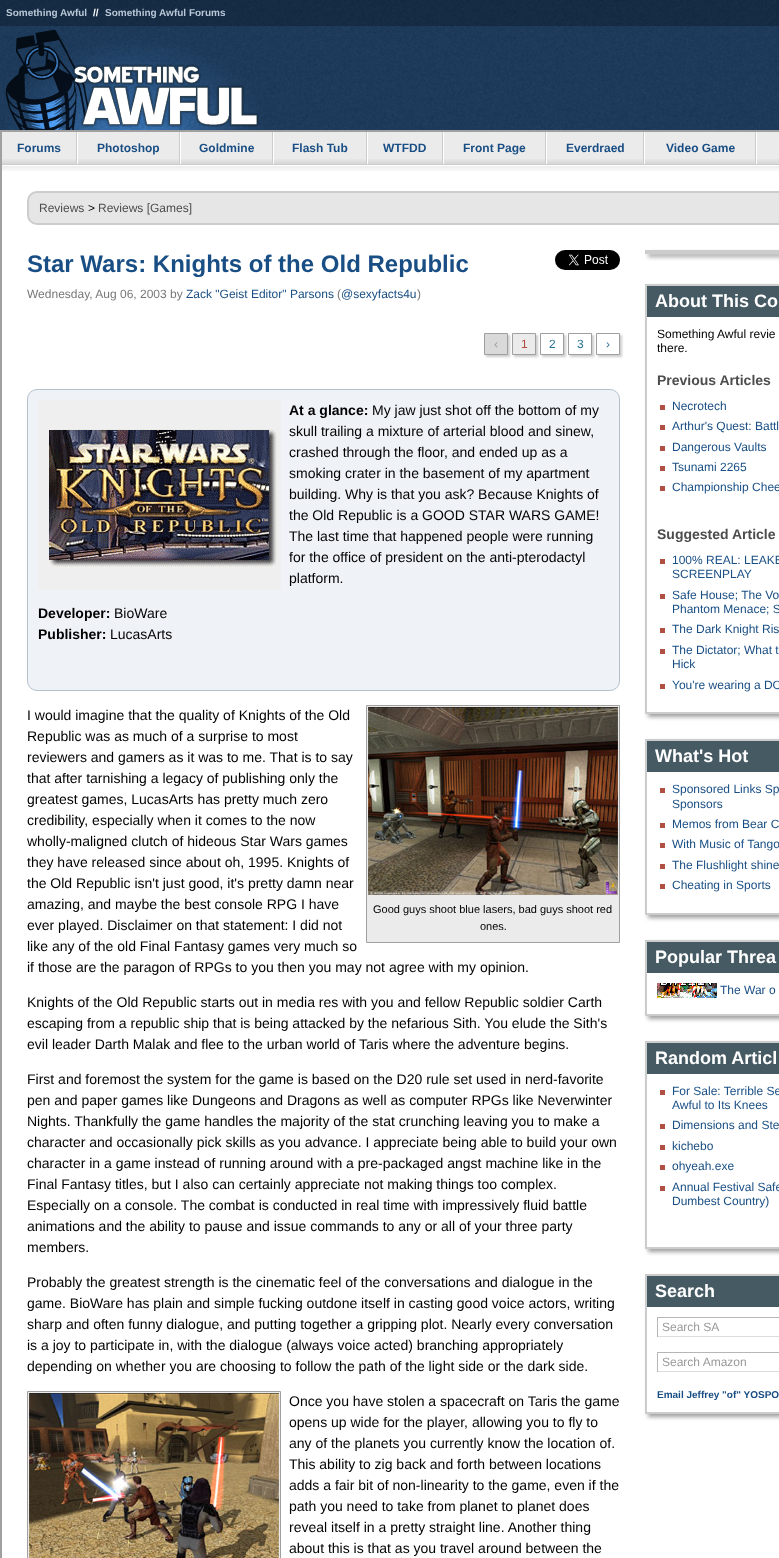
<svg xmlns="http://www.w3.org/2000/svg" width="779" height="1558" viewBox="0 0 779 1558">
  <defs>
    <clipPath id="clip1"><path d="M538 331H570V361H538ZM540 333H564V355H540Z" clip-rule="evenodd"/></clipPath>
    <clipPath id="clip2"><path d="M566 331H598V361H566ZM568 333H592V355H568Z" clip-rule="evenodd"/></clipPath>
    <clipPath id="clip3"><path d="M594 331H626V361H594ZM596 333H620V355H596Z" clip-rule="evenodd"/></clipPath>
    <clipPath id="clip4"><path d="M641 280H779V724H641ZM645 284H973V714H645Z" clip-rule="evenodd"/></clipPath>
    <clipPath id="clip5"><path d="M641 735H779V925H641ZM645 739H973V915H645Z" clip-rule="evenodd"/></clipPath>
    <clipPath id="clip6"><path d="M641 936H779V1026H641ZM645 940H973V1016H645Z" clip-rule="evenodd"/></clipPath>
    <clipPath id="clip7"><path d="M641 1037H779V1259H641ZM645 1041H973V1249H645Z" clip-rule="evenodd"/></clipPath>
    <clipPath id="clip8"><path d="M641 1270H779V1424H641ZM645 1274H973V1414H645Z" clip-rule="evenodd"/></clipPath>
  </defs>
  <rect width="100%" height="100%" fill="#fff"/>
  <image x="0" y="0" width="779" height="130" href="img/1.png"/>
  <path d="M74 66h183v59H74z" fill="#fff"/>
  <image x="0" y="26" width="270" height="104" href="img/2.png"/>
  <path d="M0 130h779v2H0z" fill="#a0a0a0"/>
  <path d="M0 130h2v1428H0z" fill="#a0a0a0"/>
  <path d="M2 132h777v32H2z" fill="#ebebeb"/>
  <path d="M2 164h777v1H2z" fill="#ccc"/>
  <image x="2" y="159" width="74" height="5" href="img/3.png"/>
  <path d="M76 132h1v32H76z" fill="#ccc"/>
  <image x="78" y="159" width="101" height="5" href="img/4.png"/>
  <path d="M77 132h1v32H77z" fill="#fff"/>
  <path d="M179 132h1v32H179z" fill="#ccc"/>
  <image x="181" y="159" width="91" height="5" href="img/5.png"/>
  <path d="M180 132h1v32H180z" fill="#fff"/>
  <path d="M272 132h1v32H272z" fill="#ccc"/>
  <image x="274" y="159" width="92" height="5" href="img/6.png"/>
  <path d="M273 132h1v32H273z" fill="#fff"/>
  <path d="M366 132h1v32H366z" fill="#ccc"/>
  <image x="368" y="159" width="74" height="5" href="img/3.png"/>
  <path d="M367 132h1v32H367z" fill="#fff"/>
  <path d="M442 132h1v32H442z" fill="#ccc"/>
  <image x="444" y="159" width="101" height="5" href="img/4.png"/>
  <path d="M443 132h1v32H443z" fill="#fff"/>
  <path d="M545 132h1v32H545z" fill="#ccc"/>
  <image x="547" y="159" width="96" height="5" href="img/7.png"/>
  <path d="M546 132h1v32H546z" fill="#fff"/>
  <path d="M643 132h1v32H643z" fill="#ccc"/>
  <image x="645" y="159" width="110" height="5" href="img/8.png"/>
  <path d="M644 132h1v32H644z" fill="#fff"/>
  <path d="M755 132h1v32H755z" fill="#ccc"/>
  <image x="757" y="159" width="22" height="5" href="img/9.png"/>
  <path d="M756 132h1v32H756z" fill="#fff"/>
  <image x="2" y="166" width="777" height="5" href="img/10.png"/>
  <rect x="28" y="192" width="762" height="32" rx="9" fill="#e6e6e6" stroke="#ccc" stroke-width="2"/>
  <image x="555" y="250" width="65" height="20" href="img/11.png"/>
  <path d="M486 335h24v22H486z" fill="#ccc" filter="blur(1px)"/>
  <path d="M484.5 333.5h23v21H484.5z" fill="#d9d9d9" stroke="#a0a0a0"/>
  <path d="M514 335h24v22H514z" fill="#ccc" filter="blur(1px)"/>
  <path d="M512.5 333.5h23v21H512.5z" fill="none" stroke="#a0a0a0"/>
  <path d="M513 334h22v20H513z" fill="#ebebeb"/>
  <g clip-path="url(#clip1)">
    <path d="M542 335h24v22H542z" fill="#ccc" filter="blur(1px)"/>
  </g>
  <path d="M540.5 333.5h23v21H540.5z" fill="none" stroke="#a0a0a0"/>
  <g clip-path="url(#clip2)">
    <path d="M570 335h24v22H570z" fill="#ccc" filter="blur(1px)"/>
  </g>
  <path d="M568.5 333.5h23v21H568.5z" fill="none" stroke="#a0a0a0"/>
  <g clip-path="url(#clip3)">
    <path d="M598 335h24v22H598z" fill="#ccc" filter="blur(1px)"/>
  </g>
  <path d="M596.5 333.5h23v21H596.5z" fill="none" stroke="#a0a0a0"/>
  <rect x="27.5" y="389.5" width="592" height="301" rx="9.5" fill="#eff3f7" stroke="#b4c1cd"/>
  <image x="38" y="400" width="243" height="190" href="img/12.png"/>
  <path d="M366.5 705.5h253v237H366.5z" fill="#ebebeb" stroke="#a0a0a0"/>
  <image x="368" y="707" width="250" height="188" href="img/13.png"/>
  <path d="M27.5 1391.5h253v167H27.5z" fill="#ebebeb" stroke="#a0a0a0"/>
  <image x="29" y="1393" width="250" height="165" href="img/14.png"/>
  <path d="M648 253h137v4H648z" fill="#a0a0a0" filter="blur(2px)"/>
  <path d="M645 250h134v4H645z" fill="#ccc"/>
  <g clip-path="url(#clip4)">
    <path d="M648 287h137v430H648z" fill="#a0a0a0" filter="blur(2px)"/>
  </g>
  <path d="M646 285h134v428H646z" fill="none" stroke="#ccc" stroke-width="2"/>
  <path d="M647 286h132v31H647z" fill="#455a63"/>
  <path d="M660 405h5v5H660z" fill="#b05042"/>
  <path d="M660 425h5v5H660z" fill="#b05042"/>
  <path d="M660 446h5v5H660z" fill="#b05042"/>
  <path d="M660 466h5v5H660z" fill="#b05042"/>
  <path d="M660 486h5v5H660z" fill="#b05042"/>
  <path d="M660 559h5v5H660z" fill="#b05042"/>
  <path d="M660 594h5v5H660z" fill="#b05042"/>
  <path d="M660 628h5v5H660z" fill="#b05042"/>
  <path d="M660 649h5v5H660z" fill="#b05042"/>
  <path d="M660 684h5v5H660z" fill="#b05042"/>
  <g clip-path="url(#clip5)">
    <path d="M648 742h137v176H648z" fill="#a0a0a0" filter="blur(2px)"/>
  </g>
  <path d="M646 740h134v174H646z" fill="none" stroke="#ccc" stroke-width="2"/>
  <path d="M647 741h132v31H647z" fill="#455a63"/>
  <path d="M660 788h5v5H660z" fill="#b05042"/>
  <path d="M660 823h5v5H660z" fill="#b05042"/>
  <path d="M660 843h5v5H660z" fill="#b05042"/>
  <path d="M660 864h5v5H660z" fill="#b05042"/>
  <path d="M660 884h5v5H660z" fill="#b05042"/>
  <g clip-path="url(#clip6)">
    <path d="M648 943h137v76H648z" fill="#a0a0a0" filter="blur(2px)"/>
  </g>
  <path d="M646 941h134v74H646z" fill="none" stroke="#ccc" stroke-width="2"/>
  <path d="M647 942h132v31H647z" fill="#455a63"/>
  <image x="657" y="983" width="60" height="15" href="img/15.png"/>
  <g clip-path="url(#clip7)">
    <path d="M648 1044h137v208H648z" fill="#a0a0a0" filter="blur(2px)"/>
  </g>
  <path d="M646 1042h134v206H646z" fill="none" stroke="#ccc" stroke-width="2"/>
  <path d="M647 1043h132v31H647z" fill="#455a63"/>
  <path d="M660 1090h5v5H660z" fill="#b05042"/>
  <path d="M660 1124h5v5H660z" fill="#b05042"/>
  <path d="M660 1145h5v5H660z" fill="#b05042"/>
  <path d="M660 1165h5v5H660z" fill="#b05042"/>
  <path d="M660 1186h5v5H660z" fill="#b05042"/>
  <g clip-path="url(#clip8)">
    <path d="M648 1277h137v140H648z" fill="#a0a0a0" filter="blur(2px)"/>
  </g>
  <path d="M646 1275h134v138H646z" fill="none" stroke="#ccc" stroke-width="2"/>
  <path d="M647 1276h132v31H647z" fill="#455a63"/>
  <path d="M657 1317h122v1H657z" fill="#b6b6b6"/>
  <path d="M657 1336h122v1H657z" fill="#dcdcdc"/>
  <path d="M657 1317h1v20H657z" fill="#b6b6b6"/>
  <path d="M657 1352h122v1H657z" fill="#b6b6b6"/>
  <path d="M657 1371h122v1H657z" fill="#dcdcdc"/>
  <path d="M657 1352h1v20H657z" fill="#b6b6b6"/>
  <text x="6" y="16" font-family="Liberation Sans" font-size="10" font-weight="bold" fill="#b7c7d6">Something Awful</text>
  <text x="93" y="16" font-family="Liberation Sans" font-size="10" font-weight="bold" fill="#fff">//</text>
  <text x="105" y="16" font-family="Liberation Sans" font-size="10" font-weight="bold" fill="#b7c7d6">Something Awful Forums</text>
  <g font-family="Liberation Sans" font-size="12" font-weight="bold" fill="#194e84">
    <text x="17" y="152">Forums</text>
    <text x="97" y="152">Photoshop</text>
    <text x="199" y="152">Goldmine</text>
    <text x="292" y="152">Flash Tub</text>
    <text x="383" y="152">WTFDD</text>
    <text x="463" y="152">Front Page</text>
    <text x="566" y="152">Everdraed</text>
    <text x="666" y="152">Video Game</text>
  </g>
  <text x="39" y="212" font-family="Liberation Sans" font-size="12" fill="#4d4d4d">Reviews</text>
  <text x="88" y="212" font-family="Liberation Sans" font-size="12" fill="#000">&gt;</text>
  <text x="98" y="212" font-family="Liberation Sans" font-size="12" fill="#4d4d4d">Reviews [Games]</text>
  <text x="27" y="272" font-family="Liberation Sans" font-size="24" font-weight="bold" fill="#194e84">Star Wars: Knights of the Old Republic</text>
  <text x="27" y="298" font-family="Liberation Sans" font-size="12" fill="#777">Wednesday, Aug 06, 2003 by</text>
  <text x="186" y="298" font-family="Liberation Sans" font-size="12" fill="#194e84">Zack "Geist Editor" Parsons</text>
  <text x="337" y="298" font-family="Liberation Sans" font-size="12" fill="#777">(</text>
  <text x="341" y="298" font-family="Liberation Sans" font-size="12" fill="#194e84">@sexyfacts4u</text>
  <text x="417" y="298" font-family="Liberation Sans" font-size="12" fill="#777">)</text>
  <text x="494" y="348" font-family="Liberation Sans" font-size="12" fill="#999">‹</text>
  <text x="521" y="348" font-family="Liberation Sans" font-size="12" fill="#b05042">1</text>
  <g font-family="Liberation Sans" font-size="12" fill="#297093">
    <text x="549" y="348">2</text>
    <text x="577" y="348">3</text>
    <text x="606" y="348">›</text>
  </g>
  <text x="289" y="415" font-family="Liberation Sans" font-size="14" font-weight="bold" fill="#000">At a glance:</text>
  <g font-family="Liberation Sans" font-size="14" fill="#000">
    <text x="372" y="415">My jaw just shot off the bottom of my</text>
    <text x="289" y="436">skull trailing a mixture of arterial blood and sinew,</text>
    <text x="289" y="457">crashed through the floor, and ended up as a</text>
    <text x="289" y="478">smoking crater in the basement of my apartment</text>
    <text x="289" y="499">building. Why is that you ask? Because Knights of</text>
    <text x="289" y="520">the Old Republic is a GOOD STAR WARS GAME!</text>
    <text x="289" y="541">The last time that happened people were running</text>
    <text x="289" y="562">for the office of president on the anti-pterodactyl</text>
    <text x="289" y="583">platform.</text>
  </g>
  <text x="38" y="618" font-family="Liberation Sans" font-size="14" font-weight="bold" fill="#000">Developer:</text>
  <text x="114" y="618" font-family="Liberation Sans" font-size="14" fill="#000">BioWare</text>
  <text x="38" y="639" font-family="Liberation Sans" font-size="14" font-weight="bold" fill="#000">Publisher:</text>
  <g font-family="Liberation Sans" font-size="14" fill="#000">
    <text x="110" y="639">LucasArts</text>
    <text x="27" y="720">I would imagine that the quality of Knights of the Old</text>
    <text x="27" y="741">Republic was as much of a surprise to most</text>
    <text x="27" y="762">reviewers and gamers as it was to me. That is to say</text>
    <text x="27" y="783">that after tarnishing a legacy of publishing only the</text>
    <text x="27" y="804">greatest games, LucasArts has pretty much zero</text>
    <text x="27" y="825">credibility, especially when it comes to the now</text>
    <text x="27" y="846">wholly-maligned clutch of hideous Star Wars games</text>
    <text x="27" y="867">they have released since about oh, 1995. Knights of</text>
    <text x="27" y="888">the Old Republic isn't just good, it's pretty damn near</text>
    <text x="27" y="909">amazing, and maybe the best console RPG I have</text>
    <text x="27" y="930">ever played. Disclaimer on that statement: I did not</text>
    <text x="27" y="951">like any of the old Final Fantasy games very much so</text>
    <text x="27" y="972">if those are the paragon of RPGs to you then you may not agree with my opinion.</text>
  </g>
  <g font-family="Liberation Sans" font-size="11" fill="#000">
    <text x="373" y="913">Good guys shoot blue lasers, bad guys shoot red</text>
    <text x="480" y="930">ones.</text>
  </g>
  <g font-family="Liberation Sans" font-size="14" fill="#000">
    <text x="27" y="1007">Knights of the Old Republic starts out in media res with you and fellow Republic soldier Carth</text>
    <text x="27" y="1028">escaping from a republic ship that is being attacked by the nefarious Sith. You elude the Sith's</text>
    <text x="27" y="1049">evil leader Darth Malak and flee to the urban world of Taris where the adventure begins.</text>
    <text x="27" y="1084">First and foremost the system for the game is based on the D20 rule set used in nerd-favorite</text>
    <text x="27" y="1105">pen and paper games like Dungeons and Dragons as well as computer RPGs like Neverwinter</text>
    <text x="27" y="1126">Nights. Thankfully the game handles the majority of the stat crunching leaving you to make a</text>
    <text x="27" y="1147">character and occasionally pick skills as you advance. I appreciate being able to build your own</text>
    <text x="27" y="1168">character in a game instead of running around with a pre-packaged angst machine like in the</text>
    <text x="27" y="1189">Final Fantasy titles, but I also can certainly appreciate not making things too complex.</text>
    <text x="27" y="1210">Especially on a console. The combat is conducted in real time with impressively fluid battle</text>
    <text x="27" y="1231">animations and the ability to pause and issue commands to any or all of your three party</text>
    <text x="27" y="1252">members.</text>
    <text x="27" y="1287">Probably the greatest strength is the cinematic feel of the conversations and dialogue in the</text>
    <text x="27" y="1308">game. BioWare has plain and simple fucking outdone itself in casting good voice actors, writing</text>
    <text x="27" y="1329">sharp and often funny dialogue, and putting together a gripping plot. Nearly every conversation</text>
    <text x="27" y="1350">is a joy to participate in, with the dialogue (always voice acted) branching appropriately</text>
    <text x="27" y="1371">depending on whether you are choosing to follow the path of the light side or the dark side.</text>
    <text x="289" y="1406">Once you have stolen a spacecraft on Taris the game</text>
    <text x="289" y="1427">opens up wide for the player, allowing you to fly to</text>
    <text x="289" y="1448">any of the planets you currently know the location of.</text>
    <text x="289" y="1469">This ability to zig back and forth between locations</text>
    <text x="289" y="1490">adds a fair bit of non-linearity to the game, even if the</text>
    <text x="289" y="1511">path you need to take from planet to planet does</text>
    <text x="289" y="1532">reveal itself in a pretty straight line. Another thing</text>
    <text x="289" y="1553">about this is that as you travel around between the</text>
  </g>
  <text x="655" y="307" font-family="Liberation Sans" font-size="18" font-weight="bold" fill="#fff">About This Co</text>
  <g font-family="Liberation Sans" font-size="12" fill="#000">
    <text x="657" y="338">Something Awful revie</text>
    <text x="657" y="352">there.</text>
  </g>
  <text x="657" y="385" font-family="Liberation Sans" font-size="14" font-weight="bold" fill="#4d4d4d">Previous Articles</text>
  <g font-family="Liberation Sans" font-size="12" fill="#194e84">
    <text x="672" y="410">Necrotech</text>
    <text x="672" y="430">Arthur's Quest: Battl</text>
    <text x="672" y="451">Dangerous Vaults</text>
    <text x="672" y="471">Tsunami 2265</text>
    <text x="672" y="491">Championship Chee</text>
  </g>
  <text x="657" y="539" font-family="Liberation Sans" font-size="14" font-weight="bold" fill="#4d4d4d">Suggested Article</text>
  <g font-family="Liberation Sans" font-size="12" fill="#194e84">
    <text x="672" y="564">100% REAL: LEAKE</text>
    <text x="672" y="578">SCREENPLAY</text>
    <text x="672" y="599">Safe House; The Vo</text>
    <text x="672" y="613">Phantom Menace; S</text>
    <text x="672" y="633">The Dark Knight Ris</text>
    <text x="672" y="654">The Dictator; What t</text>
    <text x="672" y="668">Hick</text>
    <text x="672" y="689">You're wearing a DO</text>
  </g>
  <text x="655" y="762" font-family="Liberation Sans" font-size="18" font-weight="bold" fill="#fff">What's Hot</text>
  <g font-family="Liberation Sans" font-size="12" fill="#194e84">
    <text x="672" y="793">Sponsored Links Sp</text>
    <text x="672" y="808">Sponsors</text>
    <text x="672" y="828">Memos from Bear C</text>
    <text x="672" y="848">With Music of Tango</text>
    <text x="672" y="869">The Flushlight shine</text>
    <text x="672" y="889">Cheating in Sports</text>
  </g>
  <text x="655" y="963" font-family="Liberation Sans" font-size="18" font-weight="bold" fill="#fff">Popular Threa</text>
  <text x="720" y="994" font-family="Liberation Sans" font-size="12" fill="#194e84">The War o</text>
  <text x="655" y="1064" font-family="Liberation Sans" font-size="18" font-weight="bold" fill="#fff">Random Articl</text>
  <g font-family="Liberation Sans" font-size="12" fill="#194e84">
    <text x="672" y="1095">For Sale: Terrible Se</text>
    <text x="672" y="1109">Awful to Its Knees</text>
    <text x="672" y="1129">Dimensions and Ste</text>
    <text x="672" y="1150">kichebo</text>
    <text x="672" y="1170">ohyeah.exe</text>
    <text x="672" y="1191">Annual Festival Safe</text>
    <text x="672" y="1205">Dumbest Country)</text>
  </g>
  <text x="655" y="1297" font-family="Liberation Sans" font-size="18" font-weight="bold" fill="#fff">Search</text>
  <g font-family="Liberation Sans" font-size="12" fill="#999">
    <text x="662" y="1331">Search SA</text>
    <text x="662" y="1366">Search Amazon</text>
  </g>
  <text x="657" y="1398" font-family="Liberation Sans" font-size="10" font-weight="bold" fill="#194e84">Email Jeffrey "of" YOSPO</text>
</svg>
